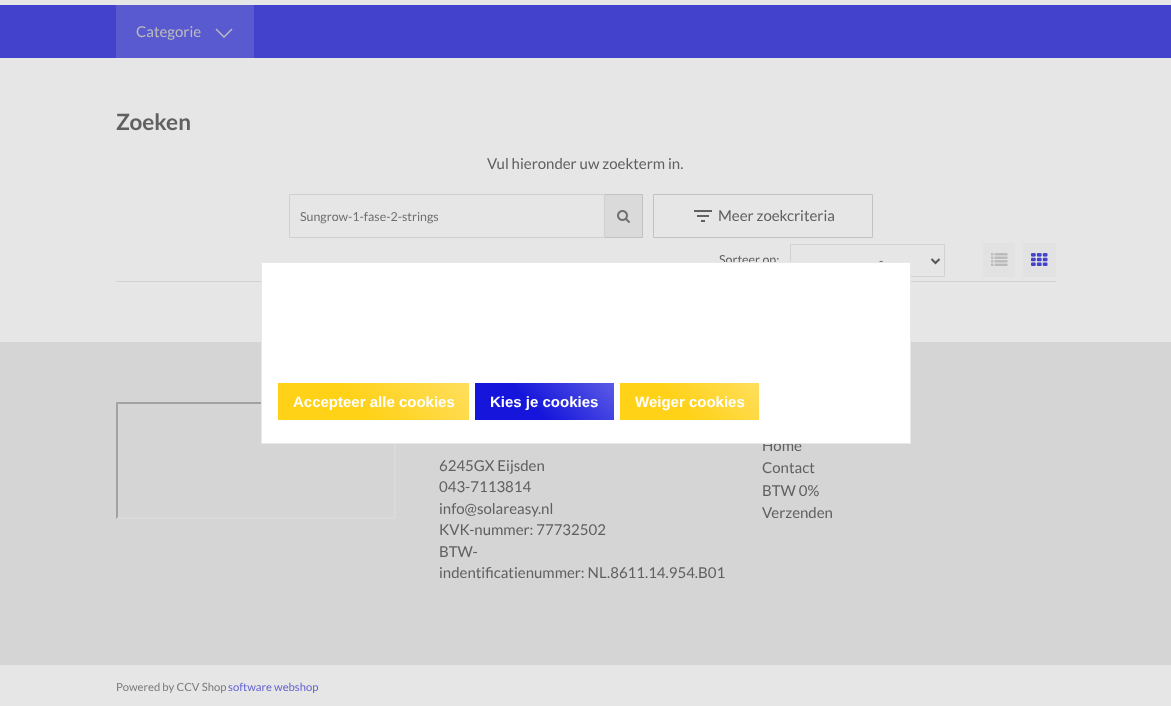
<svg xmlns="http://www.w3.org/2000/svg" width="1171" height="706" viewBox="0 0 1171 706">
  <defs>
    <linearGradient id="g1" gradientUnits="userSpaceOnUse" x1="734" y1="358" x2="646" y2="446"><stop offset="0" stop-color="#fff" stop-opacity="0.3"/><stop offset="0.6" stop-color="#fff" stop-opacity="0"/></linearGradient>
    <linearGradient id="g2" gradientUnits="userSpaceOnUse" x1="589" y1="358" x2="501" y2="446"><stop offset="0" stop-color="#fff" stop-opacity="0.3"/><stop offset="0.6" stop-color="#fff" stop-opacity="0"/></linearGradient>
    <linearGradient id="g3" gradientUnits="userSpaceOnUse" x1="431" y1="345" x2="317" y2="459"><stop offset="0" stop-color="#fff" stop-opacity="0.3"/><stop offset="0.6" stop-color="#fff" stop-opacity="0"/></linearGradient>
  </defs>
  <rect width="100%" height="100%" fill="#e6e6e6"/>
  <path d="M0 5h1171v53H0z" fill="#4242cc"/>
  <path d="M116 5h138v53H116z" fill="#5a5ad0"/>
  <path d="M216.5 28.5L215.5 29.5L224 38L232.5 29.5L231.5 28.5L224 36Z" fill="#bcbcbc"/>
  <path d="M289.5 194.5h315v43H289.5z" fill="none" stroke="#cfcfcf"/>
  <path d="M605 195h37v42H605z" fill="#dadada"/>
  <path d="M605 194h38v1H605z" fill="#c2c2c2"/>
  <path d="M642 194h1v44H642z" fill="#c2c2c2"/>
  <path d="M605 237h38v1H605z" fill="#c2c2c2"/>
  <image x="617" y="210" width="13" height="13" href="img/1.png"/>
  <path d="M653.5 194.5h219v43H653.5z" fill="none" stroke="#c2c2c2"/>
  <image x="694" y="210" width="18" height="12" href="img/2.png"/>
  <path d="M116 281h940v1H116z" fill="#d2d2d2"/>
  <path d="M790.5 244.5h154v32H790.5z" fill="none" stroke="#d2d2d2"/>
  <path d="M931.5 259L935.5 263L939.5 259" fill="none" stroke="#575757" stroke-width="2"/>
  <path d="M983 243h32v34H983z" fill="#e2e2e2"/>
  <image x="991" y="253" width="17" height="13" href="img/3.png"/>
  <path d="M1023 243h33v34H1023z" fill="#e2e2e2"/>
  <image x="1031" y="253" width="17" height="13" href="img/4.png"/>
  <path d="M0 342h1171v323H0z" fill="#d5d5d5"/>
  <path d="M116 402H396L394 404H118Z" fill="#a2a2a2"/>
  <path d="M396 402V519L394 517V404Z" fill="#dadada"/>
  <path d="M396 519H116L118 517H394Z" fill="#dadada"/>
  <path d="M116 519V402L118 404V517Z" fill="#a2a2a2"/>
  <text x="136" y="37" font-family="Lato" font-size="15" fill="#bcbcbc">Categorie</text>
  <text x="116" y="130" font-family="Lato" font-size="22.5" font-weight="bold" fill="#606060">Zoeken</text>
  <text x="487" y="169" font-family="Lato" font-size="15" fill="#606060">Vul hieronder uw zoekterm in.</text>
  <text x="300" y="221" font-family="Lato" font-size="12.4" fill="#6f6f6f">Sungrow-1-fase-2-strings</text>
  <text x="718" y="221" font-family="Lato" font-size="15" fill="#606060">Meer zoekcriteria</text>
  <text x="719" y="264" font-family="Lato" font-size="12.4" fill="#606060">Sorteer op:</text>
  <text x="879" y="265" font-family="Lato" font-size="12" fill="#575757">-</text>
  <g font-family="Lato" font-size="15" fill="#606060">
    <text x="439" y="471">6245GX Eijsden</text>
    <text x="439" y="492">043-7113814</text>
    <text x="439" y="514">info@solareasy.nl</text>
    <text x="439" y="535">KVK-nummer: 77732502</text>
    <text x="439" y="557">BTW-</text>
    <text x="439" y="578">indentificatienummer: NL.8611.14.954.B01</text>
    <text x="762" y="451">Home</text>
  </g>
  <path d="M261.5 262.5h649v181H261.5z" fill="#fff" stroke="#e8e8e8"/>
  <path d="M620 383h139v37H620z" fill="#ffd117"/>
  <path d="M661 383h98v37H661z" fill="url(#g1)"/>
  <text x="635" y="407" font-family="Liberation Sans" font-size="15" font-weight="bold" fill="#fff">Weiger cookies</text>
  <path d="M475 383h139v37H475z" fill="#1515db"/>
  <path d="M516 383h98v37H516z" fill="url(#g2)"/>
  <text x="490" y="407" font-family="Liberation Sans" font-size="15" font-weight="bold" fill="#fff">Kies je cookies</text>
  <path d="M278 383h191v37H278z" fill="#ffd117"/>
  <path d="M343 383h126v37H343z" fill="url(#g3)"/>
  <text x="293" y="407" font-family="Liberation Sans" font-size="15" font-weight="bold" fill="#fff">Accepteer alle cookies</text>
  <g font-family="Lato" font-size="15" fill="#606060">
    <text x="762" y="473">Contact</text>
    <text x="762" y="496">BTW 0%</text>
    <text x="762" y="518">Verzenden</text>
  </g>
  <text x="116" y="691" font-family="Lato" font-size="11.25" fill="#7a7a7a">Powered by CCV Shop</text>
  <text x="228" y="691" font-family="Lato" font-size="11.25" fill="#6363d1">software webshop</text>
</svg>
